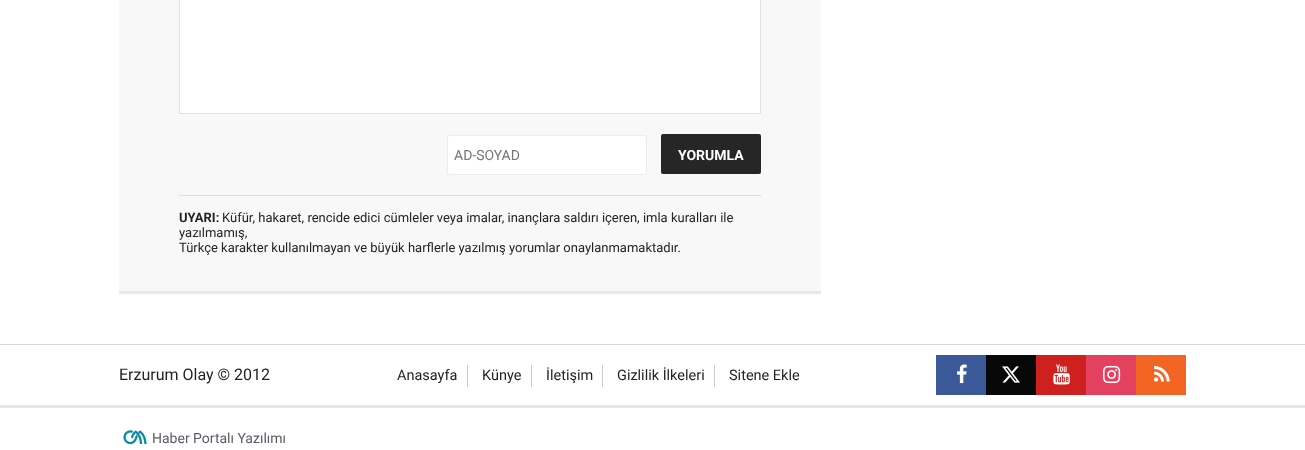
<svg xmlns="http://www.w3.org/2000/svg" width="1305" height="450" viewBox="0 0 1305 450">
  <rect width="100%" height="100%" fill="#fff"/>
  <path d="M119 0h702v291H119z" fill="#f8f8f8"/>
  <path d="M119 291h702v3H119z" fill="#e9e9e9"/>
  <path d="M179.5 -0.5h581v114H179.5z" fill="#fff" stroke="#e0e0e0"/>
  <rect x="447.5" y="135.5" width="199" height="39" rx="1.5" fill="#fff" stroke="#ededed"/>
  <rect x="661" y="134" width="100" height="40" rx="2" fill="#262626"/>
  <path d="M179 195h582v1H179z" fill="#ddd"/>
  <path d="M0 344h1305v1H0z" fill="#d6d7d9"/>
  <path d="M0 405h1305v3H0z" fill="#e4e7f0"/>
  <path d="M467 365h1v22H467z" fill="#ccc"/>
  <path d="M531 365h1v22H531z" fill="#ccc"/>
  <path d="M602 365h1v22H602z" fill="#ccc"/>
  <path d="M714 365h1v22H714z" fill="#ccc"/>
  <path d="M936 355h50v40H936z" fill="#3b5999"/>
  <image x="957" y="364" width="10" height="20" href="img/1.png"/>
  <path d="M986 355h50v40H986z" fill="#080808"/>
  <image x="1002" y="366" width="18" height="17" href="img/2.png"/>
  <path d="M1036 355h50v40H1036z" fill="#cd201f"/>
  <image x="1053" y="364" width="17" height="21" href="img/3.png"/>
  <path d="M1086 355h50v40H1086z" fill="#e4405f"/>
  <image x="1103" y="365" width="18" height="19" href="img/4.png"/>
  <path d="M1136 355h50v40H1136z" fill="#f26522"/>
  <image x="1154" y="365" width="16" height="17" href="img/5.png"/>
  <image x="123" y="430" width="24" height="15" href="img/6.png"/>
  <text x="454" y="160" font-family="Roboto" font-size="14" fill="#757575">AD-SOYAD</text>
  <text x="678" y="160" font-family="Roboto" font-size="14" font-weight="bold" fill="#fff">YORUMLA</text>
  <text x="179" y="222" font-family="Roboto" font-size="13" font-weight="bold" fill="#242424">UYARI:</text>
  <g font-family="Roboto" font-size="13" fill="#242424">
    <text x="222" y="222">Küfür, hakaret, rencide edici cümleler veya imalar, inançlara saldırı içeren, imla kuralları ile</text>
    <text x="179" y="237">yazılmamış,</text>
    <text x="179" y="252">Türkçe karakter kullanılmayan ve büyük harflerle yazılmış yorumlar onaylanmamaktadır.</text>
  </g>
  <text x="119" y="380" font-family="Roboto" font-size="16" fill="#242424">Erzurum Olay © 2012</text>
  <g font-family="Roboto" font-size="14.5" fill="#242424">
    <text x="397" y="380">Anasayfa</text>
    <text x="482" y="380">Künye</text>
    <text x="546" y="380">İletişim</text>
    <text x="617" y="380">Gizlilik İlkeleri</text>
    <text x="729" y="380">Sitene Ekle</text>
  </g>
  <text x="152" y="443" font-family="Roboto" font-size="14" fill="#5a5c67">Haber Portalı Yazılımı</text>
</svg>
